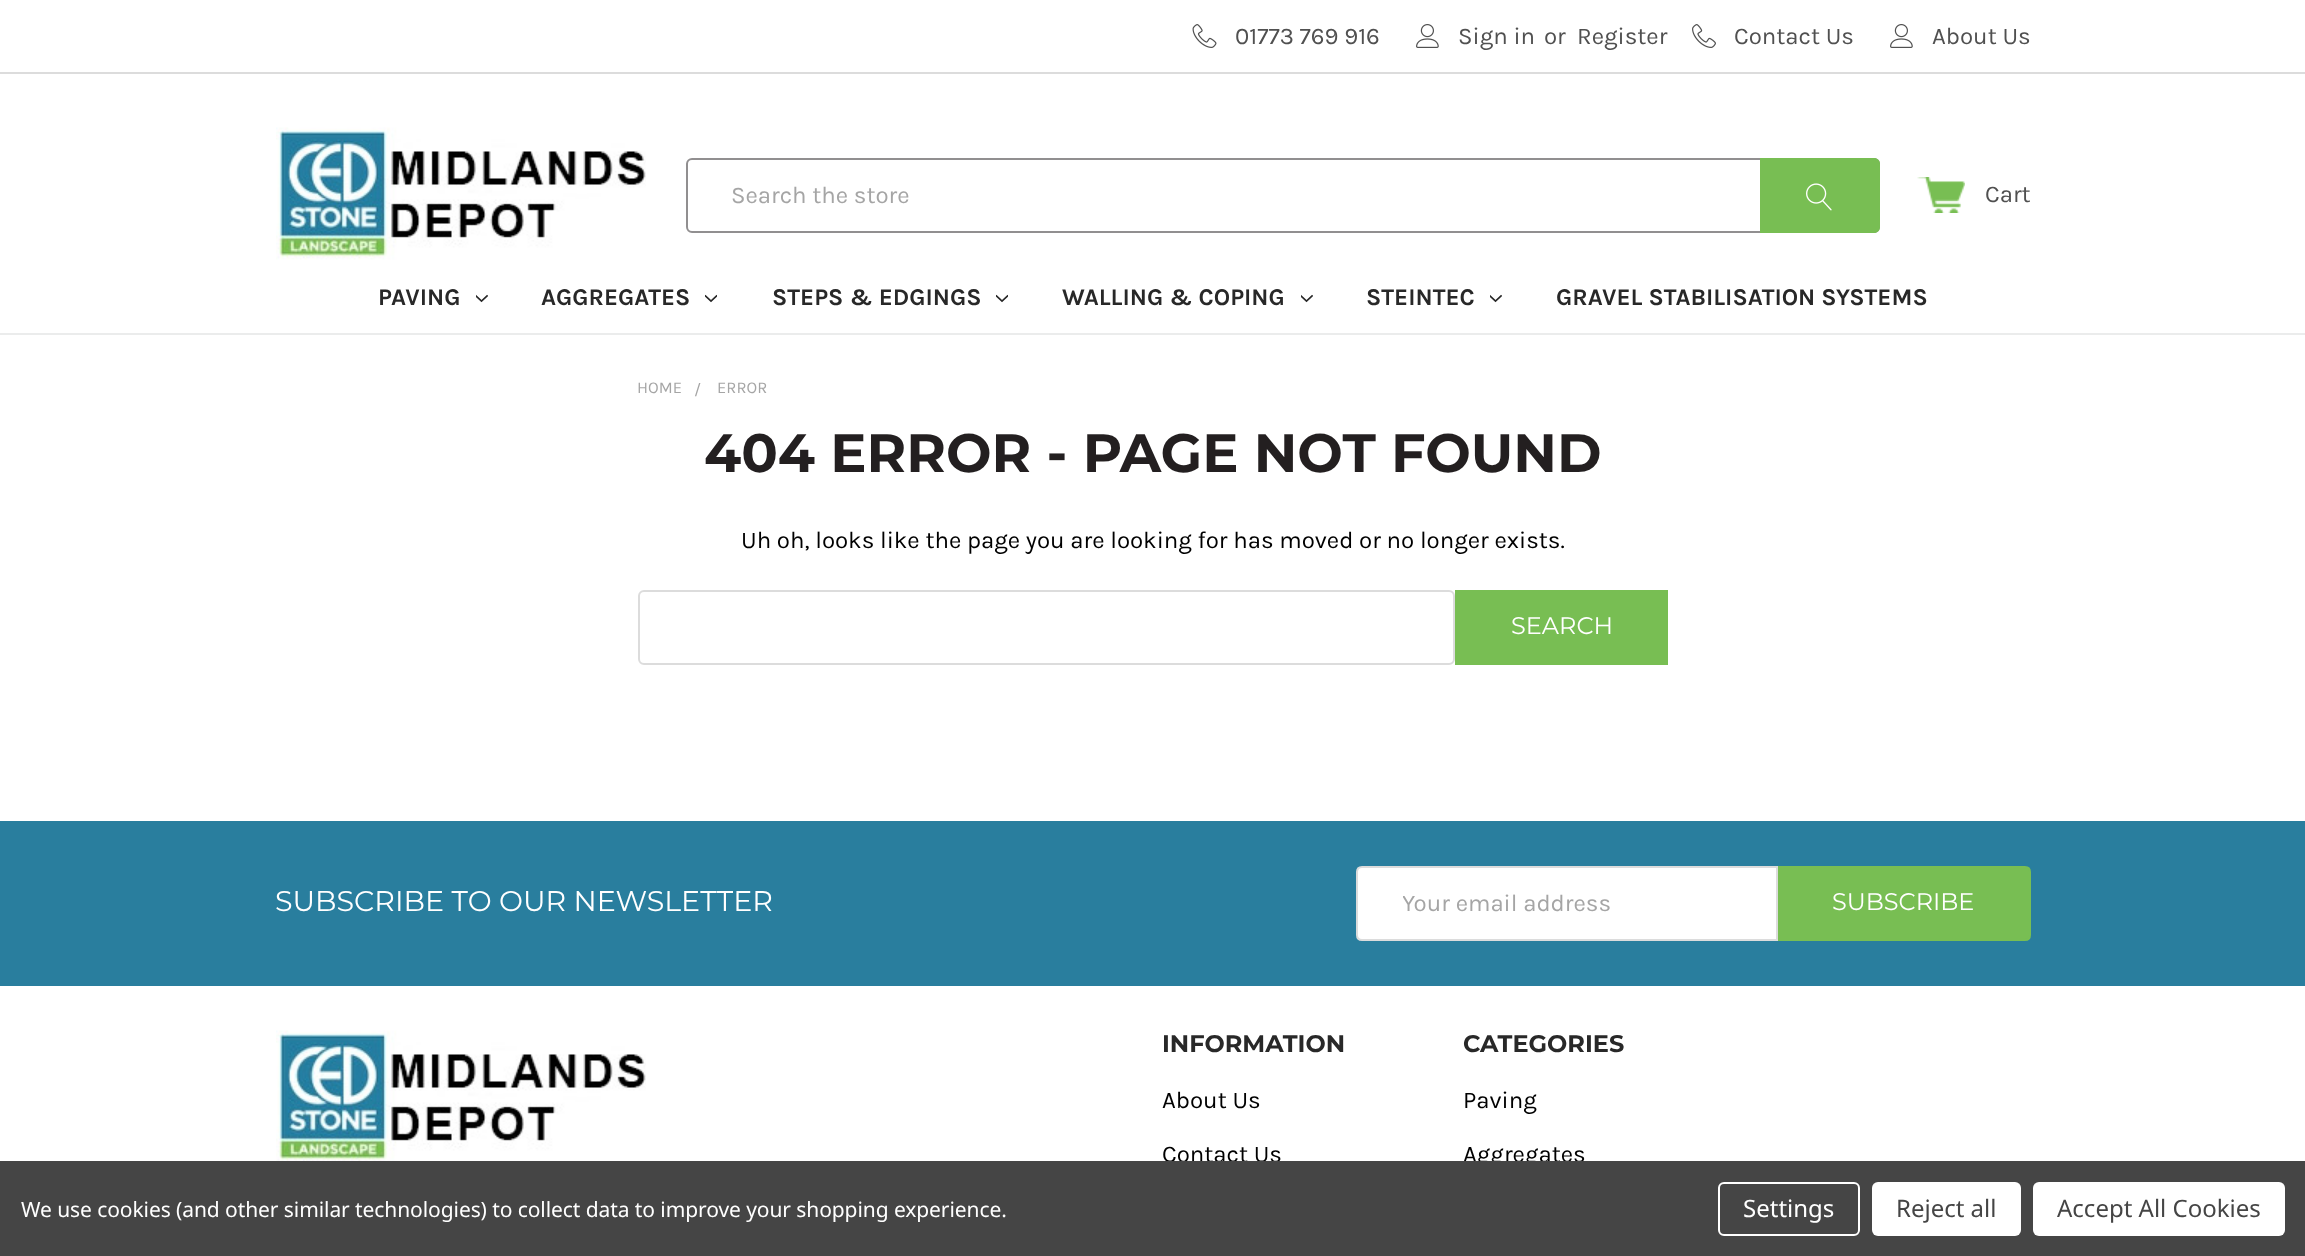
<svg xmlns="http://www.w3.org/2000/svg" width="2305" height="1256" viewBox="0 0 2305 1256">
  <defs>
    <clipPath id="clip1"><path d="M1403 888h328v29H1403z"/></clipPath>
  </defs>
  <rect width="100%" height="100%" fill="#fff"/>
  <path d="M0 72h2305v2H0z" fill="#dcdcdc"/>
  <image x="1192" y="24" width="25" height="24" href="img/1.png"/>
  <image x="1416" y="24" width="23" height="24" href="img/2.png"/>
  <image x="1692" y="24" width="24" height="24" href="img/3.png"/>
  <image x="1890" y="24" width="23" height="24" href="img/2.png"/>
  <image x="276" y="127" width="370" height="133" href="img/4.png"/>
  <rect x="687" y="159" width="1192" height="73" rx="5" fill="none" stroke="#918f90" stroke-width="2"/>
  <path d="M1760 158H1874C1877.5 158 1880 160.5 1880 164V227C1880 230.5 1877.5 233 1874 233H1760Z" fill="#78be53"/>
  <image x="1806" y="183" width="26" height="28" href="img/5.png"/>
  <image x="1917" y="177" width="48" height="36" href="img/6.png"/>
  <path d="M0 333h2305v2H0z" fill="#ebecec"/>
  <image x="476" y="294" width="12" height="9" href="img/7.png"/>
  <image x="705" y="294" width="12" height="9" href="img/8.png"/>
  <image x="996" y="294" width="12" height="9" href="img/8.png"/>
  <image x="1301" y="294" width="12" height="9" href="img/7.png"/>
  <image x="1490" y="294" width="12" height="9" href="img/7.png"/>
  <rect x="639" y="591" width="815" height="73" rx="5" fill="none" stroke="#dcdcdc" stroke-width="2"/>
  <path d="M1455 590h213v75H1455z" fill="#78be53"/>
  <path d="M0 821h2305v165H0z" fill="#297e9e"/>
  <path d="M1362 867H1777V940H1362C1359 940 1357 938 1357 935V872C1357 869 1359 867 1362 867Z" fill="#fff" stroke="#dcdcdc" stroke-width="2"/>
  <path d="M1779 867H2025C2028 867 2030 869 2030 872V935C2030 938 2028 940 2025 940H1779Z" fill="#78be53" stroke="#78be53" stroke-width="2"/>
  <image x="276" y="1030" width="370" height="131" href="img/9.png"/>
  <g font-family="Karla" font-size="24" fill="#505050">
    <text x="1235" y="44">01773 769 916</text>
    <text x="1458" y="44">Sign in</text>
    <text x="1544" y="44">or</text>
    <text x="1577" y="44">Register</text>
    <text x="1734" y="44">Contact Us</text>
    <text x="1932" y="44">About Us</text>
  </g>
  <text x="731" y="203" font-family="Karla" font-size="24" fill="#a5a5a5">Search the store</text>
  <text x="1985" y="202" font-family="Karla" font-size="24" fill="#505050">Cart</text>
  <g font-family="Karla" font-size="24" font-weight="bold" fill="#282828">
    <text x="378" y="305">PAVING</text>
    <text x="541" y="305">AGGREGATES</text>
    <text x="772" y="305">STEPS &amp; EDGINGS</text>
    <text x="1062" y="305">WALLING &amp; COPING</text>
    <text x="1366" y="305">STEINTEC</text>
    <text x="1556" y="305">GRAVEL STABILISATION SYSTEMS</text>
  </g>
  <g font-family="Karla" font-size="16.5" fill="#a5a5a5">
    <text x="637" y="393">HOME</text>
    <text x="694" y="395">/</text>
    <text x="717" y="393">ERROR</text>
  </g>
  <text x="704" y="472" font-family="Montserrat" font-size="54" font-weight="bold" fill="#231f20">404 ERROR - PAGE NOT FOUND</text>
  <text x="741" y="548" font-family="Karla" font-size="24" fill="#000">Uh oh, looks like the page you are looking for has moved or no longer exists.</text>
  <text x="1511" y="634" font-family="Montserrat" font-size="24" fill="#fff">SEARCH</text>
  <text x="275" y="911" font-family="Montserrat" font-size="28.5" fill="#fff">SUBSCRIBE TO OUR NEWSLETTER</text>
  <g clip-path="url(#clip1)">
    <text x="1402" y="911" font-family="Karla" font-size="24" fill="#a5a5a5">Your email address</text>
  </g>
  <text x="1832" y="910" font-family="Montserrat" font-size="24" fill="#fff">SUBSCRIBE</text>
  <text x="1162" y="1052" font-family="Montserrat" font-size="24" font-weight="bold" fill="#282828">INFORMATION</text>
  <g font-family="Karla" font-size="24" fill="#000">
    <text x="1162" y="1108">About Us</text>
    <text x="1162" y="1162">Contact Us</text>
  </g>
  <text x="1463" y="1052" font-family="Montserrat" font-size="24" font-weight="bold" fill="#282828">CATEGORIES</text>
  <g font-family="Karla" font-size="24" fill="#000">
    <text x="1463" y="1108">Paving</text>
    <text x="1463" y="1162">Aggregates</text>
  </g>
  <path d="M0 1161h2305v95H0z" fill="#454545"/>
  <text x="21" y="1217" font-family="Noto Sans" font-size="21" letter-spacing="-0.08" fill="#fff">We use cookies (and other similar technologies) to collect data to improve your shopping experience.</text>
  <rect x="1719" y="1183" width="140" height="52" rx="5" fill="none" stroke="#fff" stroke-width="2"/>
  <text x="1743" y="1217" font-family="Noto Sans" font-size="24" fill="#fff">Settings</text>
  <rect x="1872" y="1182" width="149" height="54" rx="6" fill="#fff"/>
  <text x="1896" y="1217" font-family="Noto Sans" font-size="24" fill="#454545">Reject all</text>
  <rect x="2033" y="1182" width="252" height="54" rx="6" fill="#fff"/>
  <text x="2057" y="1217" font-family="Noto Sans" font-size="24" fill="#454545">Accept All Cookies</text>
</svg>
